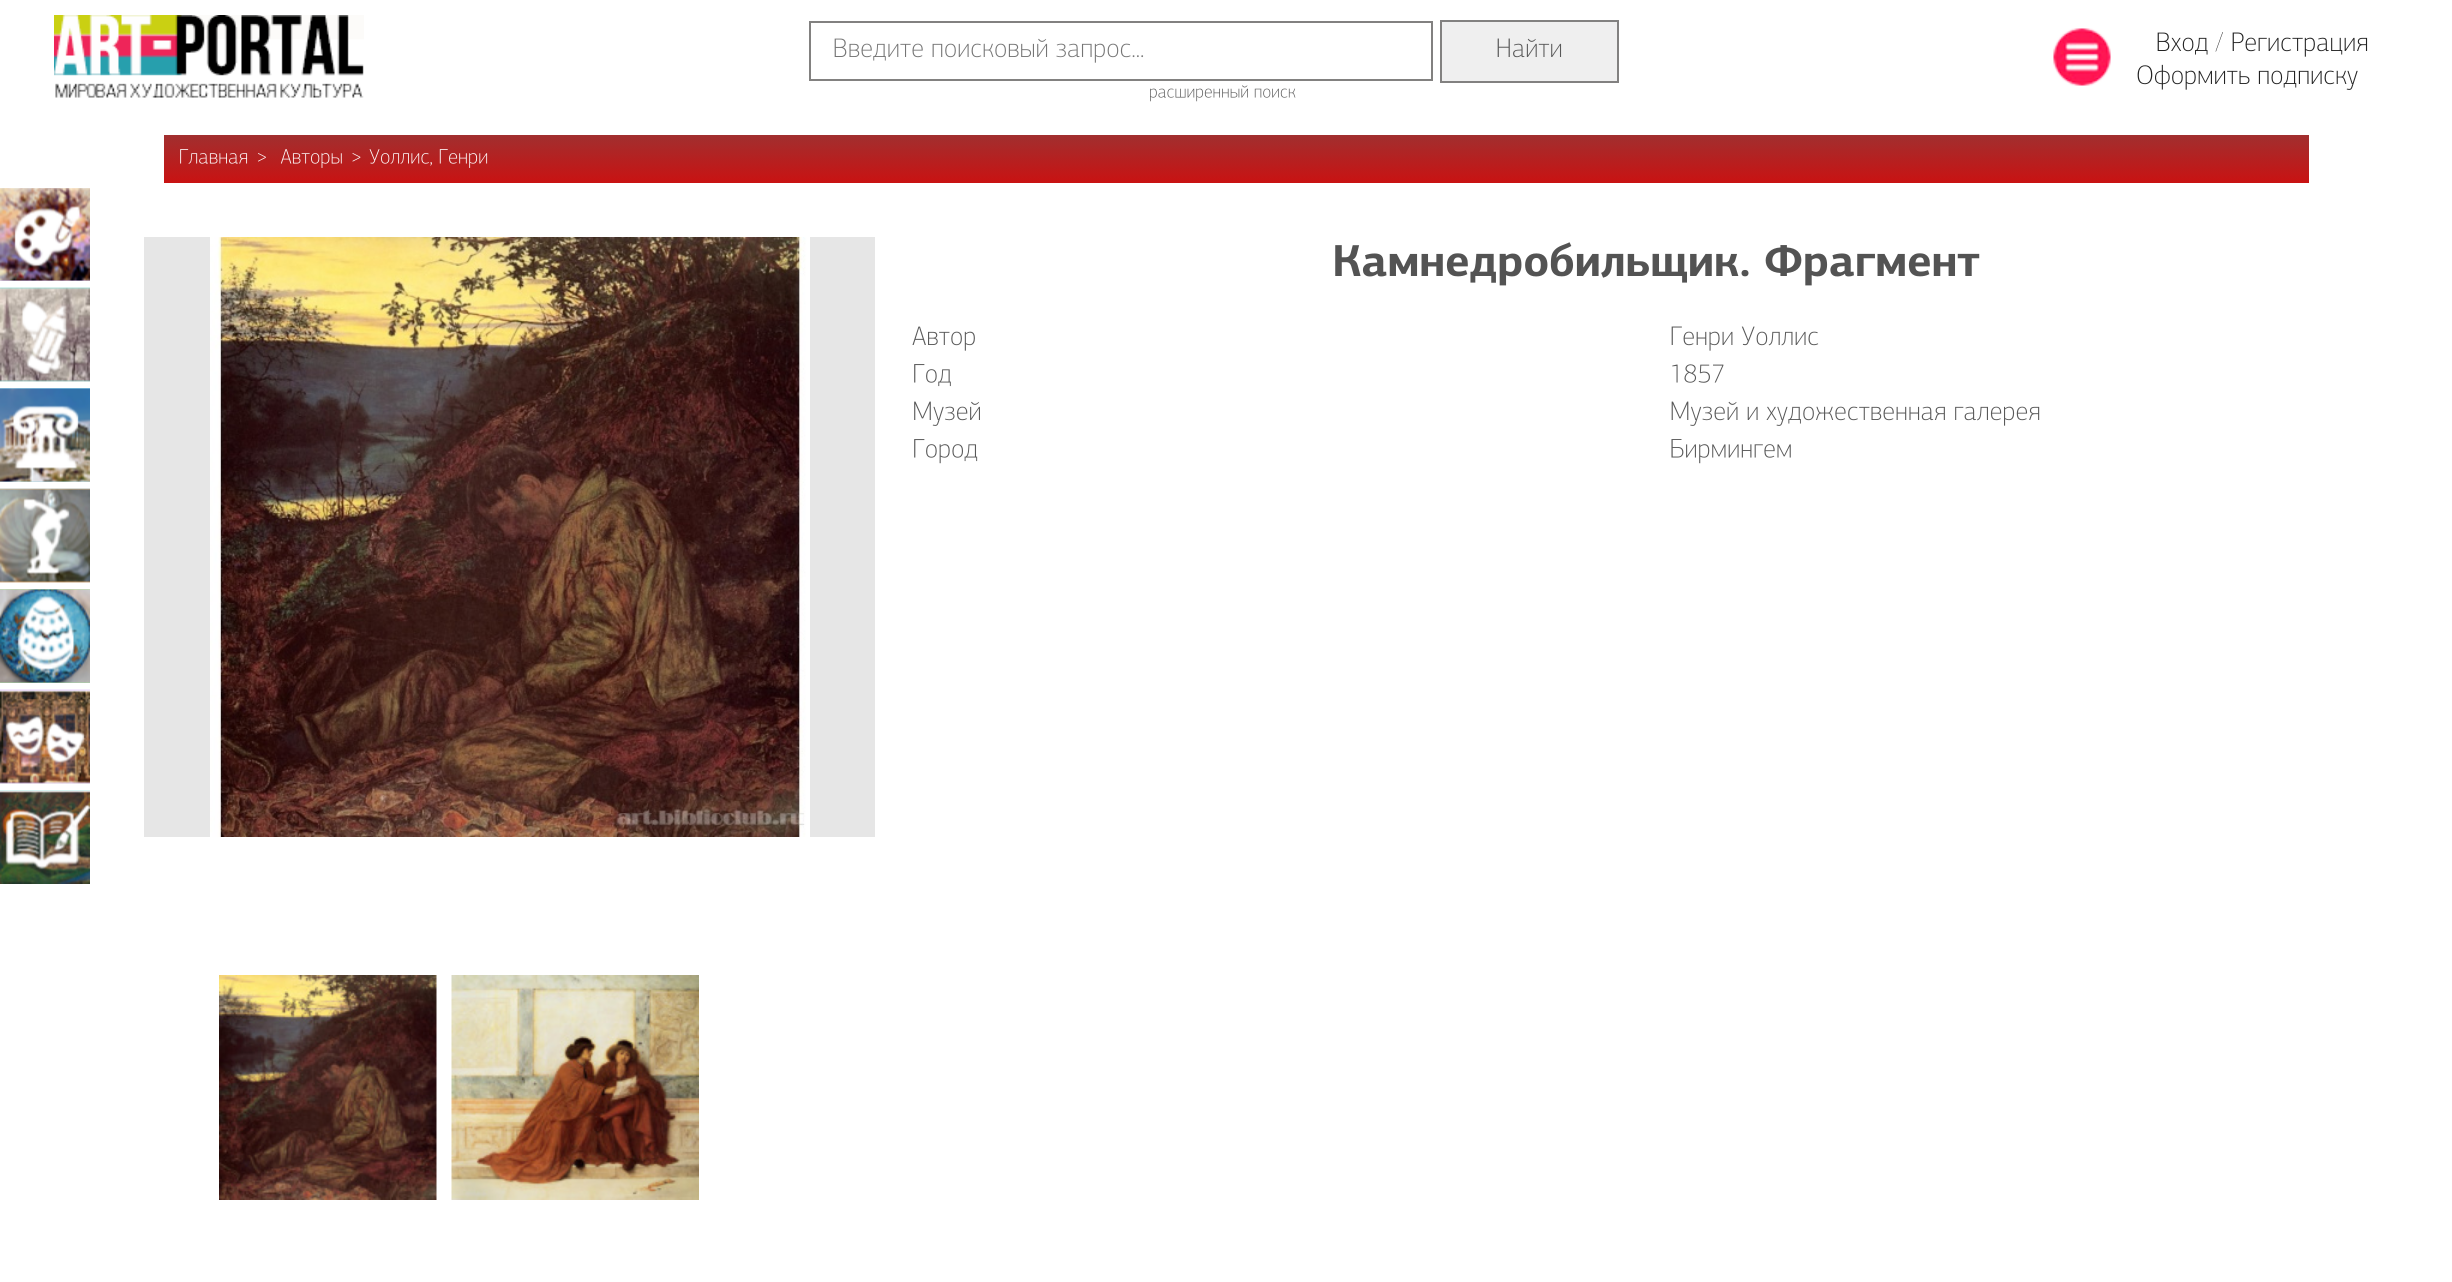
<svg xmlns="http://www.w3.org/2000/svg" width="2452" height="1282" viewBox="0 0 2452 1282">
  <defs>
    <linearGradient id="g1" gradientUnits="userSpaceOnUse" x1="1236" y1="135" x2="1236" y2="183"><stop offset="0" stop-color="#a12f2f"/><stop offset="1" stop-color="#c91212"/></linearGradient>
  </defs>
  <rect width="100%" height="100%" fill="#fff"/>
  <image x="0" y="280" width="90" height="1" href="img/1.png"/>
  <image x="0" y="188" width="90" height="93" href="img/2.png"/>
  <image x="0" y="287" width="90" height="95" href="img/3.png"/>
  <image x="0" y="287" width="90" height="95" href="img/4.png"/>
  <image x="0" y="388" width="90" height="94" href="img/5.png"/>
  <image x="0" y="388" width="90" height="94" href="img/6.png"/>
  <image x="0" y="488" width="90" height="95" href="img/7.png"/>
  <image x="0" y="488" width="90" height="95" href="img/8.png"/>
  <image x="0" y="589" width="90" height="94" href="img/9.png"/>
  <image x="0" y="589" width="90" height="94" href="img/10.png"/>
  <image x="0" y="689" width="90" height="95" href="img/11.png"/>
  <image x="0" y="690" width="90" height="94" href="img/12.png"/>
  <image x="0" y="790" width="90" height="1" href="img/13.png"/>
  <image x="0" y="790" width="90" height="94" href="img/14.png"/>
  <image x="54" y="15" width="310" height="83" href="img/15.png"/>
  <path d="M810 22h622v58H810z" fill="none" stroke="#828180" stroke-width="2"/>
  <image x="834" y="38" width="310" height="25" href="img/16.png"/>
  <path d="M1441 21h177v61H1441z" fill="#efefef" stroke="#828180" stroke-width="2"/>
  <image x="1497" y="38" width="65" height="20" href="img/17.png"/>
  <image x="1150" y="85" width="146" height="17" href="img/18.png"/>
  <image x="2053" y="28" width="58" height="58" href="img/19.png"/>
  <image x="2157" y="32" width="51" height="23" href="img/20.png"/>
  <path d="M2216 51.5H2215.5L2222.5 32H2223Z" fill="#222"/>
  <image x="2232" y="32" width="136" height="25" href="img/21.png"/>
  <image x="2137" y="64" width="221" height="26" href="img/22.png"/>
  <path d="M164 135h2145v48H164z" fill="url(#g1)"/>
  <image x="180" y="149" width="68" height="15" href="img/23.png"/>
  <image x="258" y="153" width="8" height="9" href="img/24.png"/>
  <image x="280" y="149" width="62" height="19" href="img/25.png"/>
  <image x="352" y="153" width="9" height="9" href="img/26.png"/>
  <image x="369" y="149" width="119" height="19" href="img/27.png"/>
  <path d="M144 237h731v600H144z" fill="#e6e6e6"/>
  <image x="210" y="237" width="600" height="600" href="img/28.png"/>
  <image x="1335" y="242" width="645" height="44" href="img/29.png"/>
  <image x="912" y="326" width="63" height="25" href="img/30.png"/>
  <image x="1671" y="326" width="148" height="25" href="img/31.png"/>
  <image x="914" y="364" width="37" height="23" href="img/32.png"/>
  <image x="1672" y="364" width="52" height="19" href="img/33.png"/>
  <image x="914" y="401" width="66" height="25" href="img/34.png"/>
  <image x="1671" y="401" width="369" height="25" href="img/35.png"/>
  <image x="914" y="439" width="64" height="25" href="img/36.png"/>
  <image x="1671" y="439" width="120" height="25" href="img/37.png"/>
  <image x="219" y="975" width="218" height="225" href="img/38.png"/>
  <image x="451" y="975" width="248" height="225" href="img/39.png"/>
</svg>
